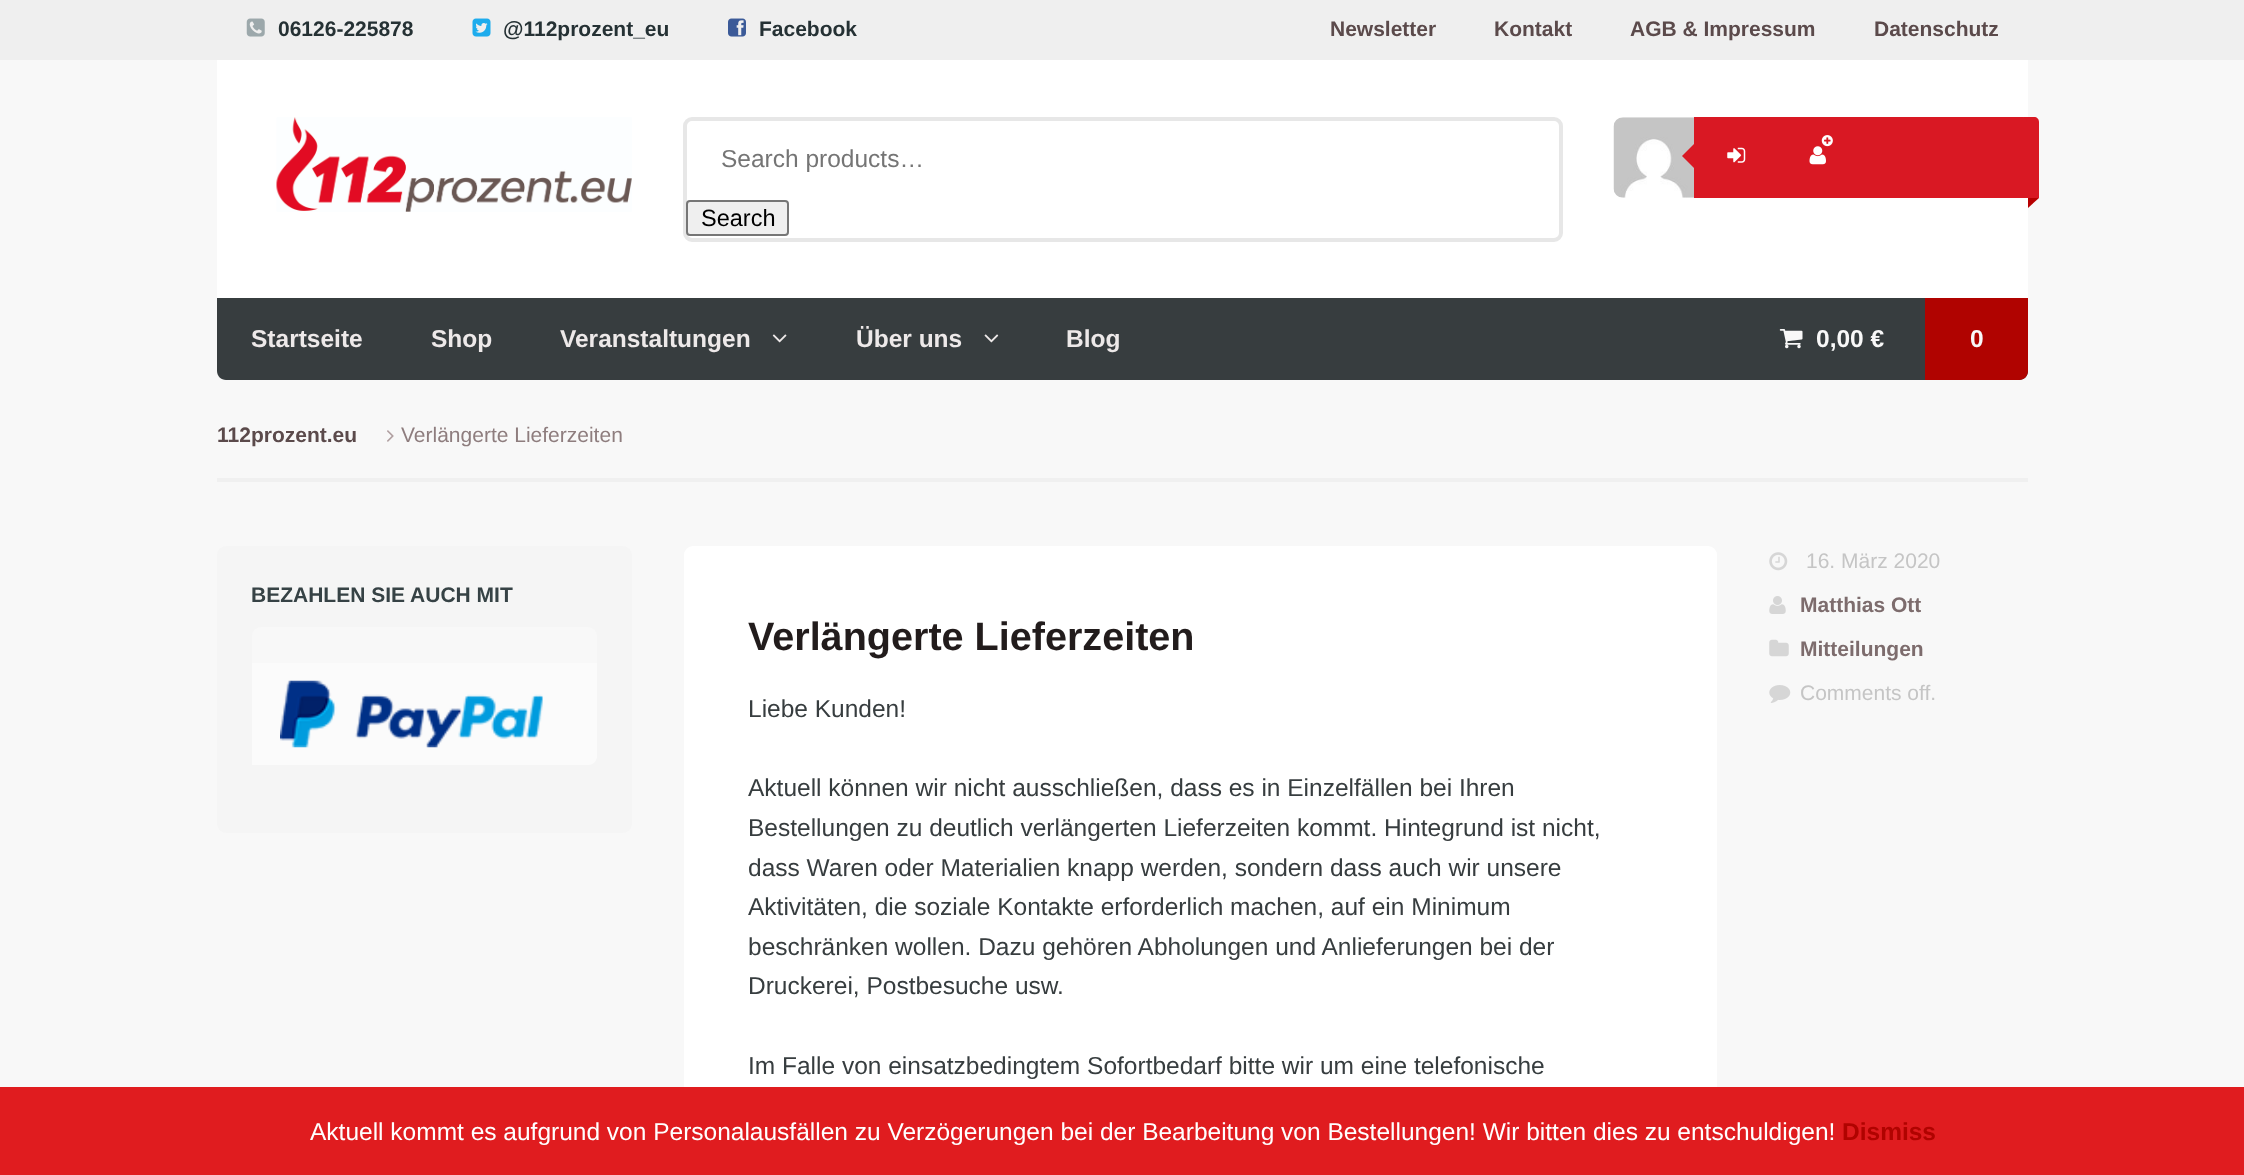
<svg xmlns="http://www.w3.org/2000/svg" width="2244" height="1175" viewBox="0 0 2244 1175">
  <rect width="100%" height="100%" fill="#f8f8f8"/>
  <path d="M0 0h2244v60H0z" fill="#efefef"/>
  <image x="246" y="18" width="19" height="19" href="img/1.png"/>
  <image x="472" y="18" width="19" height="19" href="img/2.png"/>
  <image x="728" y="18" width="18" height="19" href="img/3.png"/>
  <path d="M217 60h1811v238H217z" fill="#fff"/>
  <image x="276" y="117" width="356" height="95" href="img/4.png"/>
  <rect x="685" y="119" width="876" height="121" rx="7" fill="none" stroke="#e7e7e7" stroke-width="4"/>
  <rect x="687" y="201" width="101" height="34" rx="3" fill="#efefef" stroke="#767676" stroke-width="2"/>
  <image x="1613" y="117" width="81" height="81" href="img/5.png"/>
  <path d="M1706 117H2021C2024 117 2026 120 2026 122V198H1706H2039V122C2039 119 2037 117 2034 117Z" fill="#d91823"/>
  <path d="M1694 117H2022C2025 117 2027 119 2027 122V198H1694Z" fill="#d91823"/>
  <path d="M1696 142V170L1682 156Z" fill="#d91823"/>
  <image x="1727" y="147" width="19" height="16" href="img/6.png"/>
  <image x="1809" y="146" width="17" height="19" href="img/8.png"/>
  <image x="1821" y="135" width="12" height="12" href="img/7.png"/>
  <path d="M2028 198H2039L2028 208Z" fill="#b70001"/>
  <path d="M217 298H2028V371C2028 376 2024 380 2019 380H226C221 380 217 376 217 371Z" fill="#373d3f"/>
  <image x="772" y="334" width="15" height="9" href="img/9.png"/>
  <image x="984" y="334" width="15" height="9" href="img/10.png"/>
  <image x="1779" y="329" width="24" height="20" href="img/11.png"/>
  <path d="M1925 298H2028V371C2028 376 2024 380 2019 380H1925Z" fill="#b00300"/>
  <path d="M217 478h1811v4H217z" fill="#f0f0f0"/>
  <image x="387" y="430" width="7" height="12" href="img/12.png"/>
  <rect x="217" y="546" width="415" height="287" rx="9" fill="#f5f5f5"/>
  <rect x="252" y="627" width="345" height="138" rx="9" fill="#f8f8f8"/>
  <path d="M252 663H597V756C597 761 593 765 588 765H252Z" fill="#fbfbfb"/>
  <image x="280" y="680" width="263" height="68" href="img/13.png"/>
  <rect x="684" y="546" width="1033" height="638" rx="9" fill="#fff"/>
  <image x="1769" y="552" width="19" height="19" href="img/14.png"/>
  <image x="1769" y="596" width="17" height="18" href="img/15.png"/>
  <image x="1769" y="639" width="20" height="18" href="img/16.png"/>
  <image x="1769" y="685" width="22" height="18" href="img/17.png"/>
  <path d="M0 1087h2244v88H0z" fill="#e01c1f"/>
  <g font-family="Liberation Sans" font-size="21" font-weight="bold" fill="#253134">
    <text x="278" y="36">06126-225878</text>
    <text x="503" y="36">@112prozent_eu</text>
    <text x="759" y="36">Facebook</text>
  </g>
  <g font-family="Liberation Sans" font-size="21" font-weight="bold" fill="#5b4a4b">
    <text x="1330" y="36">Newsletter</text>
    <text x="1494" y="36">Kontakt</text>
    <text x="1630" y="36">AGB &amp; Impressum</text>
    <text x="1874" y="36">Datenschutz</text>
  </g>
  <text x="721" y="167" font-family="Liberation Sans" font-size="24.5" fill="#757575">Search products…</text>
  <text x="701" y="226" font-family="Liberation Sans" font-size="23.5" fill="#000">Search</text>
  <g font-family="Liberation Sans" font-size="24.5" font-weight="bold" fill="#ede9e9">
    <text x="251" y="347">Startseite</text>
    <text x="431" y="347">Shop</text>
    <text x="560" y="347">Veranstaltungen</text>
    <text x="856" y="347">Über uns</text>
    <text x="1066" y="347">Blog</text>
  </g>
  <g font-family="Liberation Sans" font-size="24.5" font-weight="bold" fill="#f8f8f8">
    <text x="1816" y="347">0,00 €</text>
    <text x="1970" y="347">0</text>
  </g>
  <text x="217" y="442" font-family="Liberation Sans" font-size="21" font-weight="bold" fill="#5b4a4b">112prozent.eu</text>
  <text x="401" y="442" font-family="Liberation Sans" font-size="21" fill="#8e7d7e">Verlängerte Lieferzeiten</text>
  <text x="251" y="602" font-family="Liberation Sans" font-size="21" font-weight="bold" fill="#364245">BEZAHLEN SIE AUCH MIT</text>
  <text x="748" y="650" font-family="Liberation Sans" font-size="39.6" font-weight="bold" fill="#221c1c">Verlängerte Lieferzeiten</text>
  <g font-family="Liberation Sans" font-size="24.5" fill="#373d3f">
    <text x="748" y="717">Liebe Kunden!</text>
    <text x="748" y="796">Aktuell können wir nicht ausschließen, dass es in Einzelfällen bei Ihren</text>
    <text x="748" y="836">Bestellungen zu deutlich verlängerten Lieferzeiten kommt. Hintegrund ist nicht,</text>
    <text x="748" y="876">dass Waren oder Materialien knapp werden, sondern dass auch wir unsere</text>
    <text x="748" y="915">Aktivitäten, die soziale Kontakte erforderlich machen, auf ein Minimum</text>
    <text x="748" y="955">beschränken wollen. Dazu gehören Abholungen und Anlieferungen bei der</text>
    <text x="748" y="994">Druckerei, Postbesuche usw.</text>
    <text x="748" y="1074">Im Falle von einsatzbedingtem Sofortbedarf bitte wir um eine telefonische</text>
  </g>
  <text x="1806" y="568" font-family="Liberation Sans" font-size="21" fill="#c5c5c5">16. März 2020</text>
  <g font-family="Liberation Sans" font-size="21" font-weight="bold" fill="#7d6c6d">
    <text x="1800" y="612">Matthias Ott</text>
    <text x="1800" y="656">Mitteilungen</text>
  </g>
  <text x="1800" y="700" font-family="Liberation Sans" font-size="21" fill="#c5c5c5">Comments off.</text>
  <text x="310" y="1140" font-family="Liberation Sans" font-size="24.5" fill="#fff">Aktuell kommt es aufgrund von Personalausfällen zu Verzögerungen bei der Bearbeitung von Bestellungen! Wir bitten dies zu entschuldigen!</text>
  <text x="1842" y="1140" font-family="Liberation Sans" font-size="24.5" font-weight="bold" fill="#b00300">Dismiss</text>
</svg>
